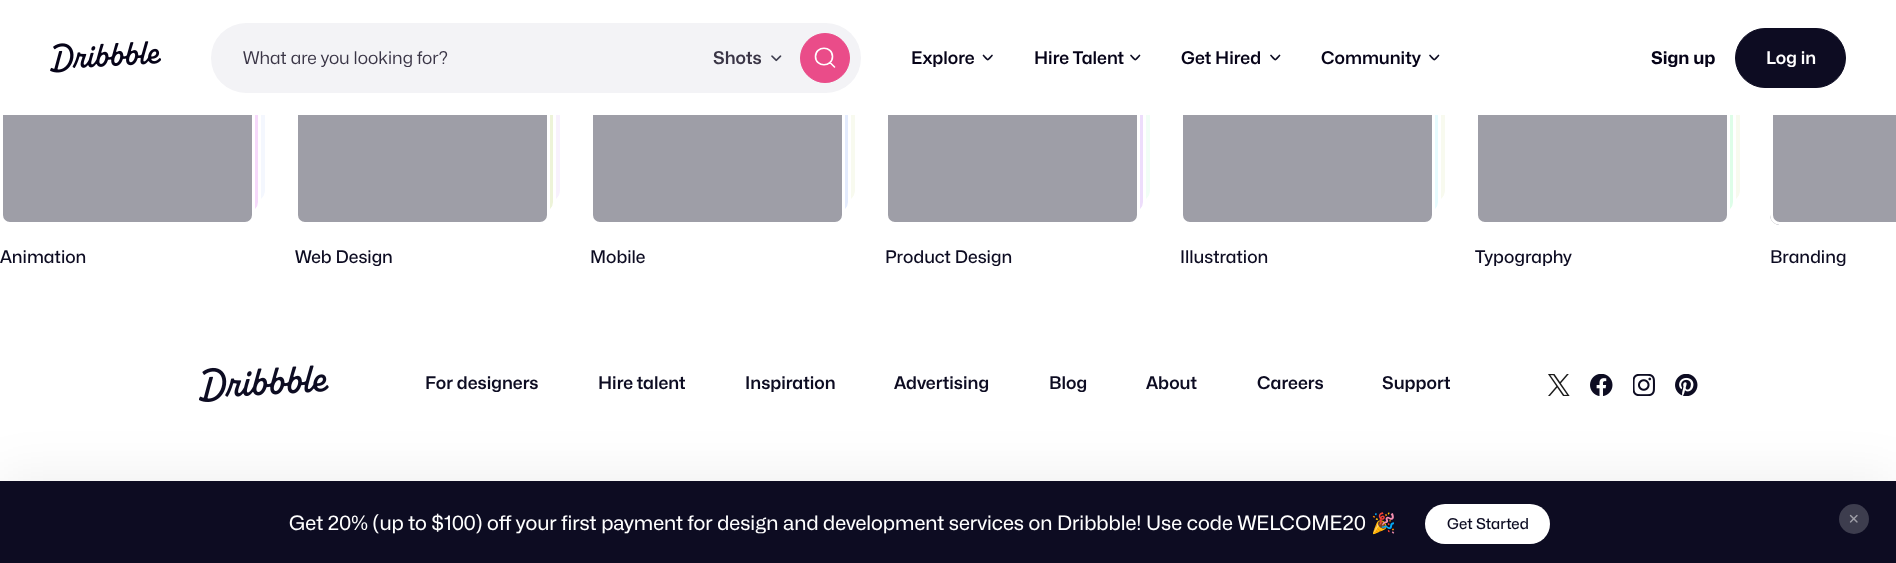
<svg xmlns="http://www.w3.org/2000/svg" width="1896" height="563" viewBox="0 0 1896 563">
  <rect width="100%" height="100%" fill="#fff"/>
  <rect x="24.5" y="21.5" width="242" height="182" rx="13.5" fill="#f4f7fe" stroke="#fff" stroke-width="3"/>
  <rect x="12.5" y="27.5" width="247" height="186" rx="11.5" fill="#f6d9fb" stroke="#fff" stroke-width="3"/>
  <rect x="1.5" y="34.5" width="252" height="189" rx="8.5" fill="#9e9ea7" stroke="#fff" stroke-width="3"/>
  <rect x="319.5" y="21.5" width="242" height="182" rx="13.5" fill="#f8f1fd" stroke="#fff" stroke-width="3"/>
  <rect x="307.5" y="27.5" width="247" height="186" rx="11.5" fill="#edf3d8" stroke="#fff" stroke-width="3"/>
  <rect x="296.5" y="34.5" width="252" height="189" rx="8.5" fill="#9e9ea7" stroke="#fff" stroke-width="3"/>
  <rect x="614.5" y="21.5" width="242" height="182" rx="13.5" fill="#f8faef" stroke="#fff" stroke-width="3"/>
  <rect x="602.5" y="27.5" width="247" height="186" rx="11.5" fill="#e3ebfd" stroke="#fff" stroke-width="3"/>
  <rect x="591.5" y="34.5" width="252" height="189" rx="8.5" fill="#9e9ea7" stroke="#fff" stroke-width="3"/>
  <rect x="909.5" y="21.5" width="242" height="182" rx="13.5" fill="#f1fef6" stroke="#fff" stroke-width="3"/>
  <rect x="897.5" y="27.5" width="247" height="186" rx="11.5" fill="#edddfb" stroke="#fff" stroke-width="3"/>
  <rect x="886.5" y="34.5" width="252" height="189" rx="8.5" fill="#9e9ea7" stroke="#fff" stroke-width="3"/>
  <rect x="1204.5" y="21.5" width="242" height="182" rx="13.5" fill="#f8faef" stroke="#fff" stroke-width="3"/>
  <rect x="1192.5" y="27.5" width="247" height="186" rx="11.5" fill="#e6fbfe" stroke="#fff" stroke-width="3"/>
  <rect x="1181.5" y="34.5" width="252" height="189" rx="8.5" fill="#9e9ea7" stroke="#fff" stroke-width="3"/>
  <rect x="1499.5" y="21.5" width="242" height="182" rx="13.5" fill="#f8faef" stroke="#fff" stroke-width="3"/>
  <rect x="1487.5" y="27.5" width="247" height="186" rx="11.5" fill="#ddfde8" stroke="#fff" stroke-width="3"/>
  <rect x="1476.5" y="34.5" width="252" height="189" rx="8.5" fill="#9e9ea7" stroke="#fff" stroke-width="3"/>
  <path d="M1780 33H1896V225H1780C1774.5 225 1770 220.5 1770 215V43C1770 37.5 1774.5 33 1780 33Z" fill="#9e9ea7"/>
  <rect x="1771.5" y="34.5" width="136" height="189" rx="8.5" fill="none" stroke="#fff" stroke-width="3"/>
  <path d="M0 20h1896v95H0z" fill="#fff"/>
  <image x="50" y="41" width="111" height="32" href="img/1.png"/>
  <rect x="211" y="23" width="650" height="70" rx="35" fill="#f3f3f6"/>
  <image x="771" y="55" width="11" height="7" href="img/2.png"/>
  <circle cx="825" cy="58" r="24.5" fill="#ea4c89" stroke="#ea4c89"/>
  <path d="M834.5 67L830 62.5M832.5 56.5C832.5 67.5 815.5 67.5 815.5 56.5C815.5 45.5 832.5 45.5 832.5 56.5Z" fill="none" stroke="#fff" stroke-width="1.6" stroke-linecap="round" stroke-linejoin="round"/>
  <path d="M992 55.5C986.5 61 989 61 983.5 55.5" fill="none" stroke="#0d0c22" stroke-width="1.7" stroke-linecap="round" stroke-linejoin="round"/>
  <path d="M1139.5 55.5C1134 61 1136.5 61 1131 55.5" fill="none" stroke="#0d0c22" stroke-width="1.7" stroke-linecap="round" stroke-linejoin="round"/>
  <path d="M1279.5 55.5C1274 61 1276.5 61 1271 55.5" fill="none" stroke="#0d0c22" stroke-width="1.7" stroke-linecap="round" stroke-linejoin="round"/>
  <path d="M1438.5 55.5C1433 61 1435.5 61 1430 55.5" fill="none" stroke="#0d0c22" stroke-width="1.7" stroke-linecap="round" stroke-linejoin="round"/>
  <rect x="1735.5" y="28.5" width="110" height="59" rx="29.5" fill="#0d0c22" stroke="#0d0c22"/>
  <image x="199" y="365" width="130" height="37" href="img/3.png"/>
  <image x="1548" y="374" width="22" height="22" href="img/4.png"/>
  <image x="1590" y="374" width="23" height="22" href="img/5.png"/>
  <image x="1633" y="374" width="22" height="22" href="img/6.png"/>
  <image x="1675" y="374" width="23" height="22" href="img/7.png"/>
  <path d="M0 474h1896v82H0z" fill="#0000000f" filter="blur(25px)"/>
  <path d="M0 481h1896v82H0z" fill="#0d0c22"/>
  <rect x="1425" y="504" width="125" height="40" rx="20" fill="#fff"/>
  <circle cx="1854" cy="519" r="15" fill="#3d3d4e"/>
  <image x="1849" y="514" width="9" height="9" href="img/8.png"/>
  <text x="243" y="64" font-family="Mona Sans" font-size="17.5" fill="#3a3546">What are you looking for?</text>
  <text x="713" y="64" font-family="Mona Sans" font-size="17.5" font-weight="600" fill="#3a3546">Shots</text>
  <g font-family="Mona Sans" font-size="17.5" font-weight="600" fill="#060318">
    <text x="911" y="64">Explore</text>
    <text x="1034" y="64">Hire Talent</text>
    <text x="1181" y="64">Get Hired</text>
    <text x="1321" y="64">Community</text>
  </g>
  <text x="1651" y="64" font-family="Mona Sans" font-size="17.5" font-weight="bold" fill="#060318">Sign up</text>
  <text x="1766" y="64" font-family="Mona Sans" font-size="17.5" font-weight="600" fill="#fff">Log in</text>
  <g font-family="Mona Sans" font-size="17.5" font-weight="500" fill="#0d0c22">
    <text x="0" y="263">Animation</text>
    <text x="295" y="263">Web Design</text>
    <text x="590" y="263">Mobile</text>
    <text x="885" y="263">Product Design</text>
    <text x="1180" y="263">Illustration</text>
    <text x="1475" y="263">Typography</text>
    <text x="1770" y="263">Branding</text>
  </g>
  <g font-family="Mona Sans" font-size="17.5" font-weight="600" fill="#0d0c22">
    <text x="425" y="389">For designers</text>
    <text x="598" y="389">Hire talent</text>
    <text x="745" y="389">Inspiration</text>
    <text x="894" y="389">Advertising</text>
    <text x="1049" y="389">Blog</text>
    <text x="1146" y="389">About</text>
    <text x="1257" y="389">Careers</text>
    <text x="1382" y="389">Support</text>
  </g>
  <text x="289" y="530" font-family="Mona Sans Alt" font-size="20" fill="#fff">Get 20% (up to $100) off your first payment for design and development services on Dribbble! Use code WELCOME20</text>
  <text x="1371" y="530" font-family="Noto Color Emoji" font-size="20" fill="#fff">🎉</text>
  <text x="1447" y="529" font-family="Mona Sans" font-size="15" font-weight="500" fill="#0d0c22">Get Started</text>
</svg>
